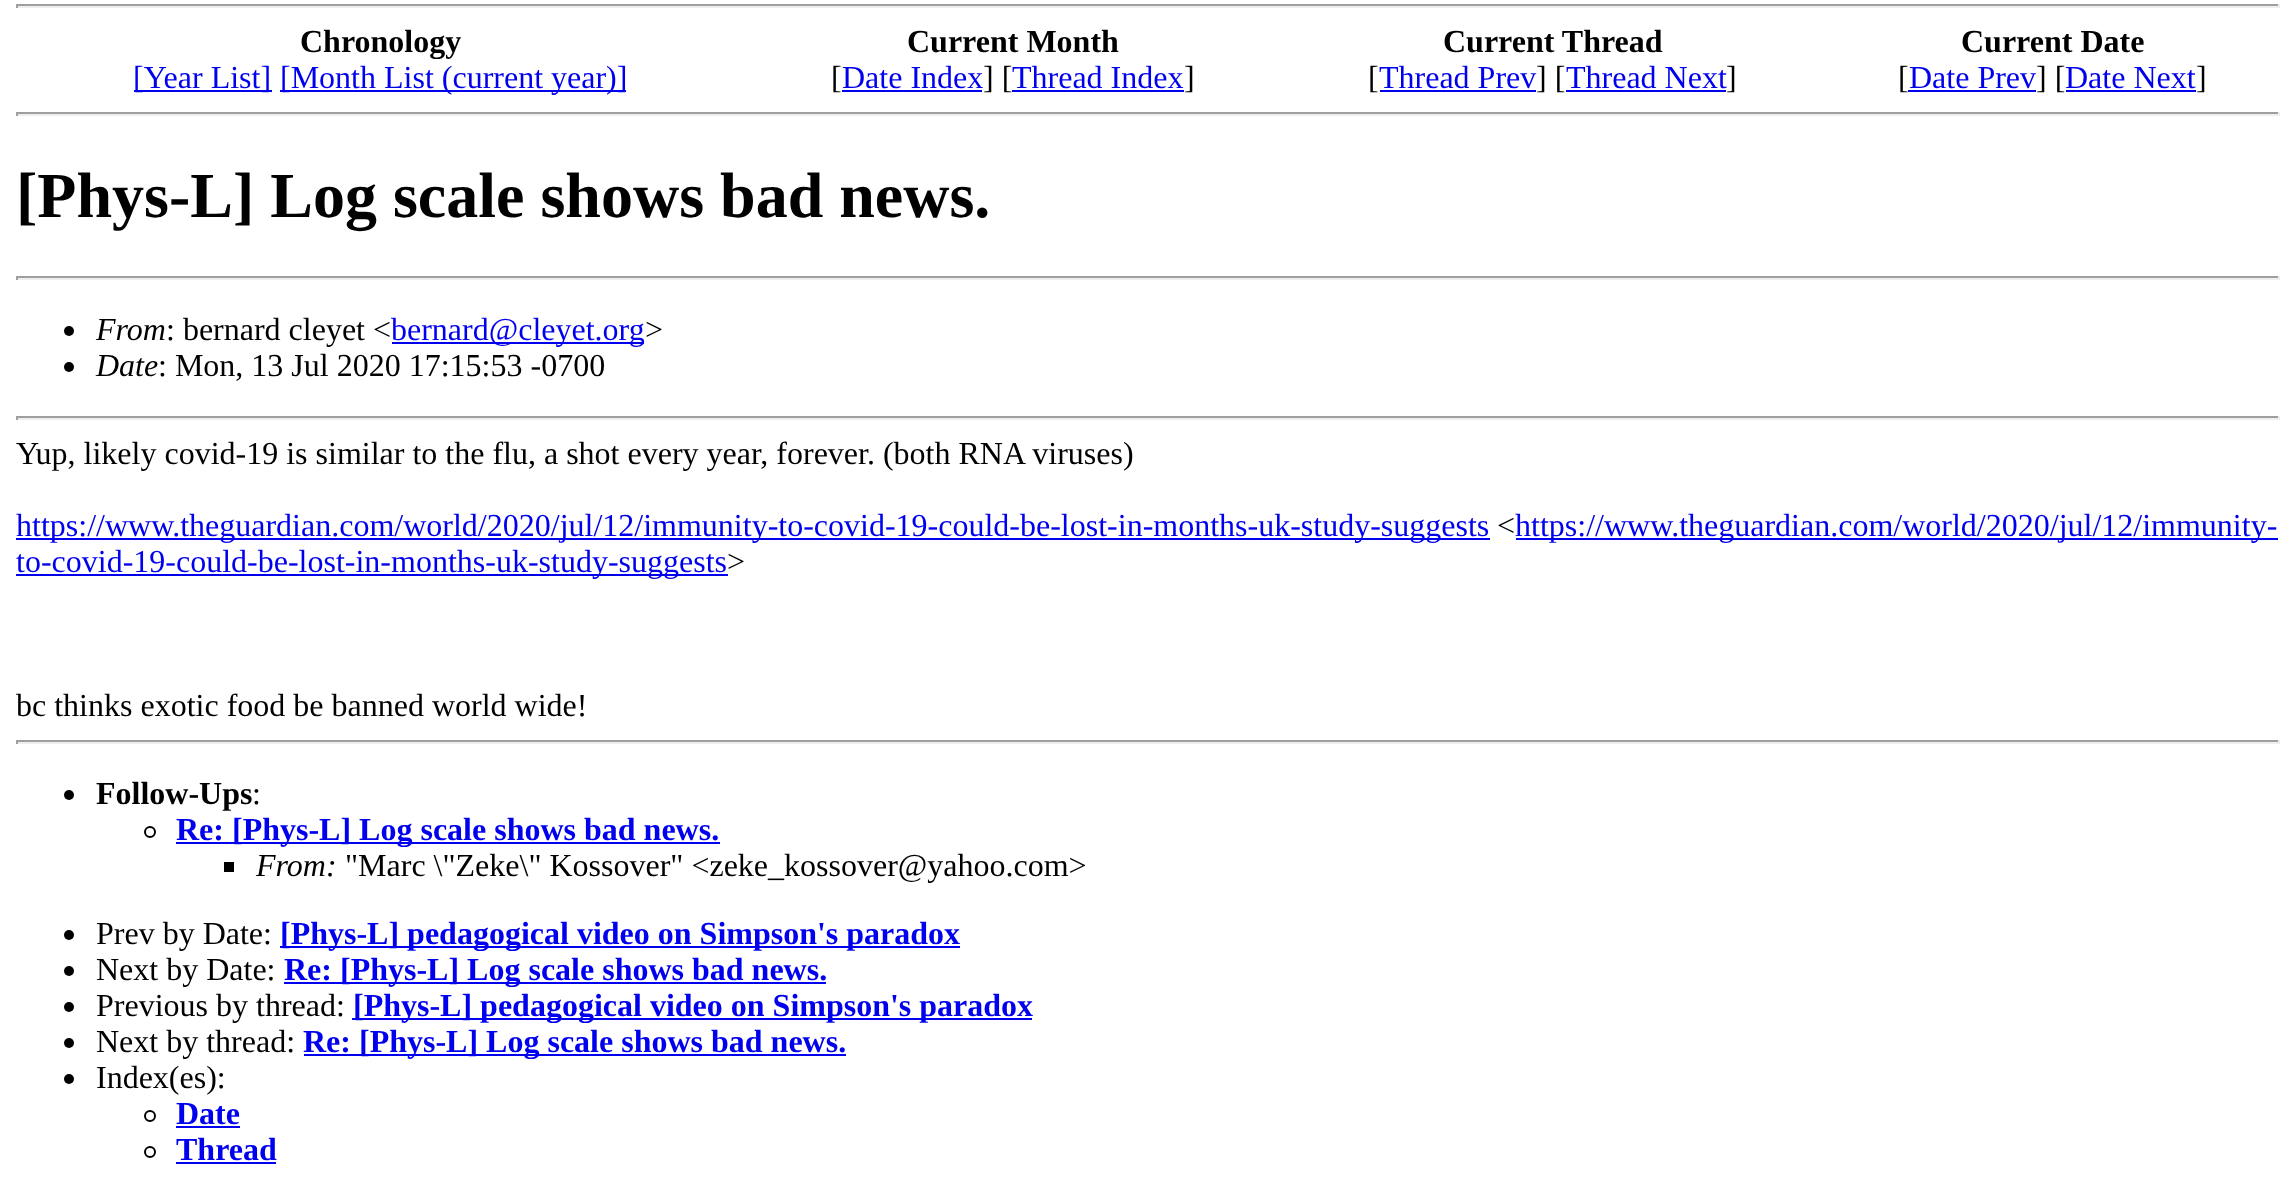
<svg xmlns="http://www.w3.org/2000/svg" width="2296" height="1198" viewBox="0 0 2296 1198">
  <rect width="100%" height="100%" fill="#fff"/>
  <path d="M16 4h2264v2H16z" fill="#9f9f9f"/>
  <path d="M2278 4h2v4H2278z" fill="#eee"/>
  <path d="M16 6h2264v2H16z" fill="#eee"/>
  <path d="M16 4h2v4H16z" fill="#9f9f9f"/>
  <path d="M134 90h138v2H134z" fill="#00e"/>
  <path d="M280 90h346v2H280z" fill="#00e"/>
  <path d="M842 90h140v2H842z" fill="#00e"/>
  <path d="M1012 90h172v2H1012z" fill="#00e"/>
  <path d="M1380 90h156v2H1380z" fill="#00e"/>
  <path d="M1566 90h160v2H1566z" fill="#00e"/>
  <path d="M1908 90h128v2H1908z" fill="#00e"/>
  <path d="M2066 90h130v2H2066z" fill="#00e"/>
  <path d="M16 112h2264v2H16z" fill="#9f9f9f"/>
  <path d="M2278 112h2v4H2278z" fill="#eee"/>
  <path d="M16 114h2264v2H16z" fill="#eee"/>
  <path d="M16 112h2v4H16z" fill="#9f9f9f"/>
  <path d="M16 276h2264v2H16z" fill="#9f9f9f"/>
  <path d="M2278 276h2v4H2278z" fill="#eee"/>
  <path d="M16 278h2264v2H16z" fill="#eee"/>
  <path d="M16 276h2v4H16z" fill="#9f9f9f"/>
  <circle cx="69" cy="331" r="5" fill="#000"/>
  <path d="M392 342h252v2H392z" fill="#00e"/>
  <circle cx="69" cy="367" r="5" fill="#000"/>
  <path d="M16 416h2264v2H16z" fill="#9f9f9f"/>
  <path d="M2278 416h2v4H2278z" fill="#eee"/>
  <path d="M16 418h2264v2H16z" fill="#eee"/>
  <path d="M16 416h2v4H16z" fill="#9f9f9f"/>
  <path d="M16 538h1474v2H16z" fill="#00e"/>
  <path d="M1516 538h762v2H1516z" fill="#00e"/>
  <path d="M16 574h712v2H16z" fill="#00e"/>
  <path d="M16 740h2264v2H16z" fill="#9f9f9f"/>
  <path d="M2278 740h2v4H2278z" fill="#eee"/>
  <path d="M16 742h2264v2H16z" fill="#eee"/>
  <path d="M16 740h2v4H16z" fill="#9f9f9f"/>
  <circle cx="69" cy="795" r="5" fill="#000"/>
  <circle cx="150" cy="832" r="5" fill="none" stroke="#000" stroke-width="2"/>
  <path d="M176 842h544v2H176z" fill="#00e"/>
  <path d="M224 862h10v10H224z" fill="#000"/>
  <circle cx="69" cy="935" r="5" fill="#000"/>
  <path d="M280 946h680v2H280z" fill="#00e"/>
  <circle cx="69" cy="971" r="5" fill="#000"/>
  <path d="M284 982h542v2H284z" fill="#00e"/>
  <circle cx="69" cy="1007" r="5" fill="#000"/>
  <path d="M352 1018h680v2H352z" fill="#00e"/>
  <circle cx="69" cy="1043" r="5" fill="#000"/>
  <path d="M304 1054h542v2H304z" fill="#00e"/>
  <circle cx="69" cy="1079" r="5" fill="#000"/>
  <circle cx="150" cy="1116" r="5" fill="none" stroke="#000" stroke-width="2"/>
  <path d="M176 1126h64v2H176z" fill="#00e"/>
  <circle cx="150" cy="1152" r="5" fill="none" stroke="#000" stroke-width="2"/>
  <path d="M176 1162h100v2H176z" fill="#00e"/>
  <g font-family="Liberation Serif" font-size="32" font-weight="bold" fill="#000">
    <text x="300" y="52">Chronology</text>
    <text x="907" y="52">Current Month</text>
    <text x="1443" y="52">Current Thread</text>
    <text x="1961" y="52">Current Date</text>
  </g>
  <g font-family="Liberation Serif" font-size="32" fill="#00e">
    <text x="133" y="88">[Year List]</text>
    <text x="280" y="88">[Month List (current year)]</text>
  </g>
  <text x="831" y="88" font-family="Liberation Serif" font-size="32" fill="#000">[</text>
  <text x="842" y="88" font-family="Liberation Serif" font-size="32" fill="#00e">Date Index</text>
  <text x="983" y="88" font-family="Liberation Serif" font-size="32" fill="#000">] [</text>
  <text x="1012" y="88" font-family="Liberation Serif" font-size="32" fill="#00e">Thread Index</text>
  <g font-family="Liberation Serif" font-size="32" fill="#000">
    <text x="1184" y="88">]</text>
    <text x="1368" y="88">[</text>
  </g>
  <text x="1379" y="88" font-family="Liberation Serif" font-size="32" fill="#00e">Thread Prev</text>
  <text x="1536" y="88" font-family="Liberation Serif" font-size="32" fill="#000">] [</text>
  <text x="1566" y="88" font-family="Liberation Serif" font-size="32" fill="#00e">Thread Next</text>
  <g font-family="Liberation Serif" font-size="32" fill="#000">
    <text x="1726" y="88">]</text>
    <text x="1898" y="88">[</text>
  </g>
  <text x="1909" y="88" font-family="Liberation Serif" font-size="32" fill="#00e">Date Prev</text>
  <text x="2036" y="88" font-family="Liberation Serif" font-size="32" fill="#000">] [</text>
  <text x="2065" y="88" font-family="Liberation Serif" font-size="32" fill="#00e">Date Next</text>
  <text x="2196" y="88" font-family="Liberation Serif" font-size="32" fill="#000">]</text>
  <text x="16" y="217" font-family="Liberation Serif" font-size="64" font-weight="bold" fill="#000">[Phys-L] Log scale shows bad news.</text>
  <text x="96" y="340" font-family="Liberation Serif" font-size="32" font-style="italic" fill="#000">From</text>
  <text x="166" y="340" font-family="Liberation Serif" font-size="32" fill="#000">: bernard cleyet &lt;</text>
  <text x="391" y="340" font-family="Liberation Serif" font-size="32" fill="#00e">bernard@cleyet.org</text>
  <text x="645" y="340" font-family="Liberation Serif" font-size="32" fill="#000">&gt;</text>
  <text x="96" y="376" font-family="Liberation Serif" font-size="32" font-style="italic" fill="#000">Date</text>
  <g font-family="Liberation Serif" font-size="32" fill="#000">
    <text x="158" y="376">: Mon, 13 Jul 2020 17:15:53 -0700</text>
    <text x="16" y="464">Yup, likely covid-19 is similar to the flu, a shot every year, forever. (both RNA viruses)</text>
  </g>
  <text x="16" y="536" font-family="Liberation Serif" font-size="32" fill="#00e">https://www.theguardian.com/world/2020/jul/12/immunity-to-covid-19-could-be-lost-in-months-uk-study-suggests</text>
  <text x="1497" y="536" font-family="Liberation Serif" font-size="32" fill="#000">&lt;</text>
  <g font-family="Liberation Serif" font-size="32" fill="#00e">
    <text x="1515" y="536">https://www.theguardian.com/world/2020/jul/12/immunity-</text>
    <text x="16" y="572">to-covid-19-could-be-lost-in-months-uk-study-suggests</text>
  </g>
  <g font-family="Liberation Serif" font-size="32" fill="#000">
    <text x="727" y="572">&gt;</text>
    <text x="16" y="716">bc thinks exotic food be banned world wide!</text>
  </g>
  <text x="96" y="804" font-family="Liberation Serif" font-size="32" font-weight="bold" fill="#000">Follow-Ups</text>
  <text x="252" y="804" font-family="Liberation Serif" font-size="32" fill="#000">:</text>
  <text x="176" y="840" font-family="Liberation Serif" font-size="32" font-weight="bold" fill="#00e">Re: [Phys-L] Log scale shows bad news.</text>
  <text x="256" y="876" font-family="Liberation Serif" font-size="32" font-style="italic" fill="#000">From:</text>
  <g font-family="Liberation Serif" font-size="32" fill="#000">
    <text x="345" y="876">"Marc \"Zeke\" Kossover" &lt;zeke_kossover@yahoo.com&gt;</text>
    <text x="96" y="944">Prev by Date:</text>
  </g>
  <text x="280" y="944" font-family="Liberation Serif" font-size="32" font-weight="bold" fill="#00e">[Phys-L] pedagogical video on Simpson's paradox</text>
  <text x="96" y="980" font-family="Liberation Serif" font-size="32" fill="#000">Next by Date:</text>
  <text x="284" y="980" font-family="Liberation Serif" font-size="32" font-weight="bold" fill="#00e">Re: [Phys-L] Log scale shows bad news.</text>
  <text x="96" y="1016" font-family="Liberation Serif" font-size="32" fill="#000">Previous by thread:</text>
  <text x="353" y="1016" font-family="Liberation Serif" font-size="32" font-weight="bold" fill="#00e">[Phys-L] pedagogical video on Simpson's paradox</text>
  <text x="96" y="1052" font-family="Liberation Serif" font-size="32" fill="#000">Next by thread:</text>
  <text x="303" y="1052" font-family="Liberation Serif" font-size="32" font-weight="bold" fill="#00e">Re: [Phys-L] Log scale shows bad news.</text>
  <text x="96" y="1088" font-family="Liberation Serif" font-size="32" fill="#000">Index(es):</text>
  <g font-family="Liberation Serif" font-size="32" font-weight="bold" fill="#00e">
    <text x="176" y="1124">Date</text>
    <text x="176" y="1160">Thread</text>
  </g>
</svg>
